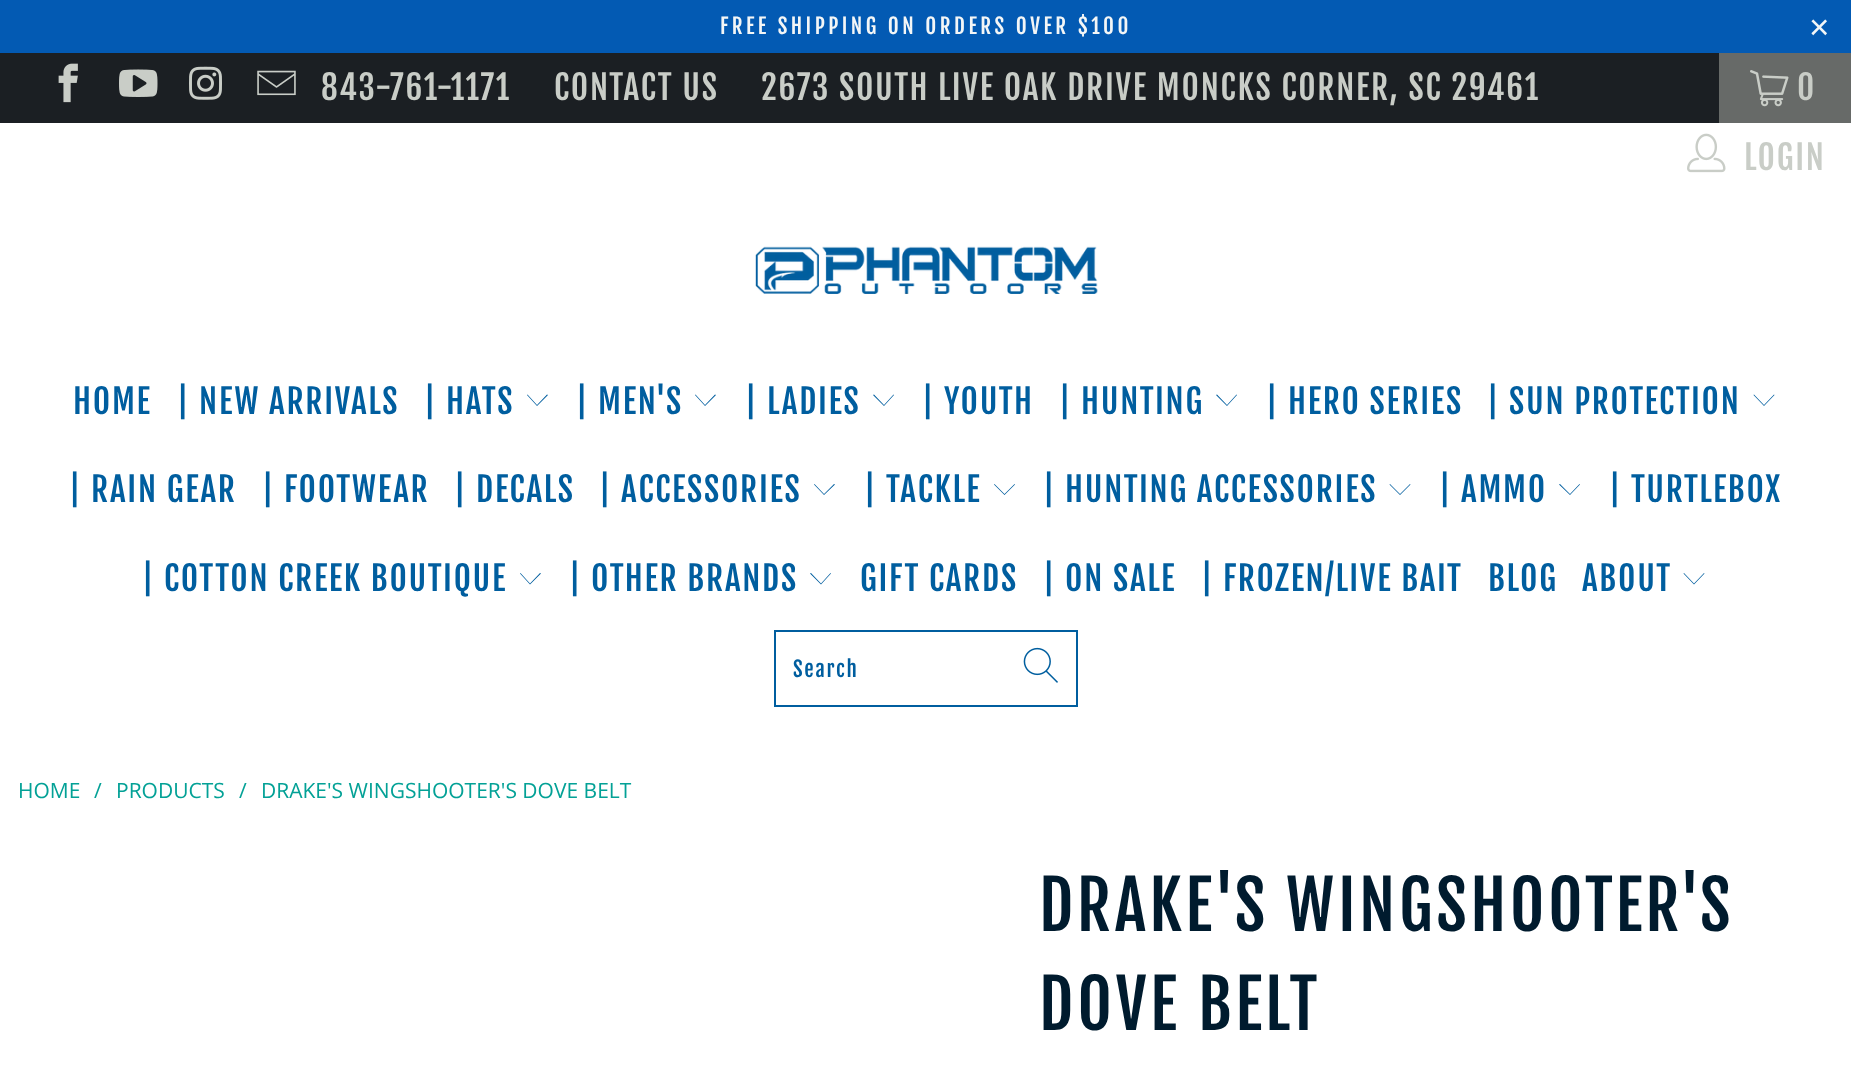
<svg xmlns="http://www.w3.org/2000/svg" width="1851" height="1082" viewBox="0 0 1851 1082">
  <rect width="100%" height="100%" fill="#fff"/>
  <path d="M0 0h1851v53H0z" fill="#035ab3"/>
  <path d="M0 53h1719v70H0z" fill="#1b1f23"/>
  <image x="58" y="63" width="20" height="40" href="img/1.png"/>
  <image x="119" y="69" width="39" height="28" href="img/2.png"/>
  <image x="189" y="66" width="33" height="34" href="img/3.png"/>
  <image x="257" y="70" width="39" height="26" href="img/4.png"/>
  <path d="M1719 53h132v70H1719z" fill="#676a68"/>
  <image x="1750" y="70" width="39" height="37" href="img/5.png"/>
  <image x="1687" y="133" width="39" height="40" href="img/6.png"/>
  <image x="755" y="246" width="343" height="48" href="img/7.png"/>
  <path d="M537 406L527 395L527.5 394.5L537 405L547 394.5L548 395Z" fill="#005e9f"/>
  <path d="M705 406L695 395L695.5 394.5L705 405L715 394.5L716 395Z" fill="#005e9f"/>
  <path d="M884 406L873 395L874 394.5L884 405L893.5 394.5L894 395Z" fill="#005e9f"/>
  <path d="M1227 406L1216 395L1217 394.5L1227 405L1236.5 394.5L1237 395Z" fill="#005e9f"/>
  <path d="M1764 406L1753.5 395L1754 394.5L1764 405L1774 394.5L1774.5 395Z" fill="#005e9f"/>
  <path d="M824 495L814 484.5L814.5 484L824 494L834 484L835 484.5Z" fill="#005e9f"/>
  <path d="M1004.5 495L994 484.5L994.5 484L1004.5 494L1014.5 484L1015 484.5Z" fill="#005e9f"/>
  <path d="M1400 495L1389.5 484.5L1390 484L1400 494L1410 484L1410.5 484.5Z" fill="#005e9f"/>
  <path d="M1570 495L1559 484.5L1560 484L1570 494L1579.5 484L1580 484.5Z" fill="#005e9f"/>
  <path d="M530 584.5L520 573.5L520.5 573L530 583.5L540 573L541 573.5Z" fill="#005e9f"/>
  <path d="M821 584.5L810 573.5L811 573L821 583.5L830.5 573L831 573.5Z" fill="#005e9f"/>
  <path d="M1694 584.5L1683.5 573.5L1684 573L1694 583.5L1704 573L1704.5 573.5Z" fill="#005e9f"/>
  <path d="M775 631h302v75H775z" fill="none" stroke="#005e9f" stroke-width="2"/>
  <image x="1023" y="647" width="35" height="36" href="img/8.png"/>
  <text x="720" y="34" font-family="Fjalla One" font-size="21" letter-spacing="3.5" fill="#f3f6f7">FREE SHIPPING ON ORDERS OVER $100</text>
  <text x="1809" y="39" font-family="Liberation Sans" font-size="35" letter-spacing="3.5" fill="#f3f6f7">×</text>
  <g font-family="Fjalla One" font-size="33.25" letter-spacing="1.75" fill="#c9cdc7">
    <text x="321" y="100">843-761-1171</text>
    <text x="554" y="100">CONTACT US</text>
    <text x="761" y="100">2673 SOUTH LIVE OAK DRIVE MONCKS CORNER, SC 29461</text>
    <text x="1797" y="100">0</text>
    <text x="1744" y="170">LOGIN</text>
  </g>
  <g font-family="Fjalla One" font-size="33.25" letter-spacing="1.75" fill="#005e9f">
    <text x="73" y="414">HOME</text>
    <text x="177" y="414">| NEW ARRIVALS</text>
    <text x="424" y="414">| HATS</text>
    <text x="576" y="414">| MEN'S</text>
    <text x="745" y="414">| LADIES</text>
    <text x="922" y="414">| YOUTH</text>
    <text x="1059" y="414">| HUNTING</text>
    <text x="1266" y="414">| HERO SERIES</text>
    <text x="1487" y="414">| SUN PROTECTION</text>
    <text x="69" y="502">| RAIN GEAR</text>
    <text x="262" y="502">| FOOTWEAR</text>
    <text x="454" y="502">| DECALS</text>
    <text x="599" y="502">| ACCESSORIES</text>
    <text x="864" y="502">| TACKLE</text>
    <text x="1043" y="502">| HUNTING ACCESSORIES</text>
    <text x="1439" y="502">| AMMO</text>
    <text x="1609" y="502">| TURTLEBOX</text>
    <text x="142" y="591">| COTTON CREEK BOUTIQUE</text>
    <text x="569" y="591">| OTHER BRANDS</text>
    <text x="860" y="591">GIFT CARDS</text>
    <text x="1043" y="591">| ON SALE</text>
    <text x="1201" y="591">| FROZEN/LIVE BAIT</text>
    <text x="1488" y="591">BLOG</text>
    <text x="1582" y="591">ABOUT</text>
  </g>
  <text x="793" y="677" font-family="Fjalla One" font-size="21" letter-spacing="1.75" fill="#005e9f">Search</text>
  <g font-family="Open Sans" font-size="21" fill="#03a196">
    <text x="18" y="798">HOME</text>
    <text x="94" y="798">/</text>
    <text x="116" y="798">PRODUCTS</text>
    <text x="239" y="798">/</text>
    <text x="261" y="798">DRAKE'S WINGSHOOTER'S DOVE BELT</text>
  </g>
  <g font-family="Fjalla One" font-size="66.5" letter-spacing="3.5" fill="#001b2e">
    <text x="1039" y="931">DRAKE'S WINGSHOOTER'S</text>
    <text x="1039" y="1030">DOVE BELT</text>
  </g>
</svg>
